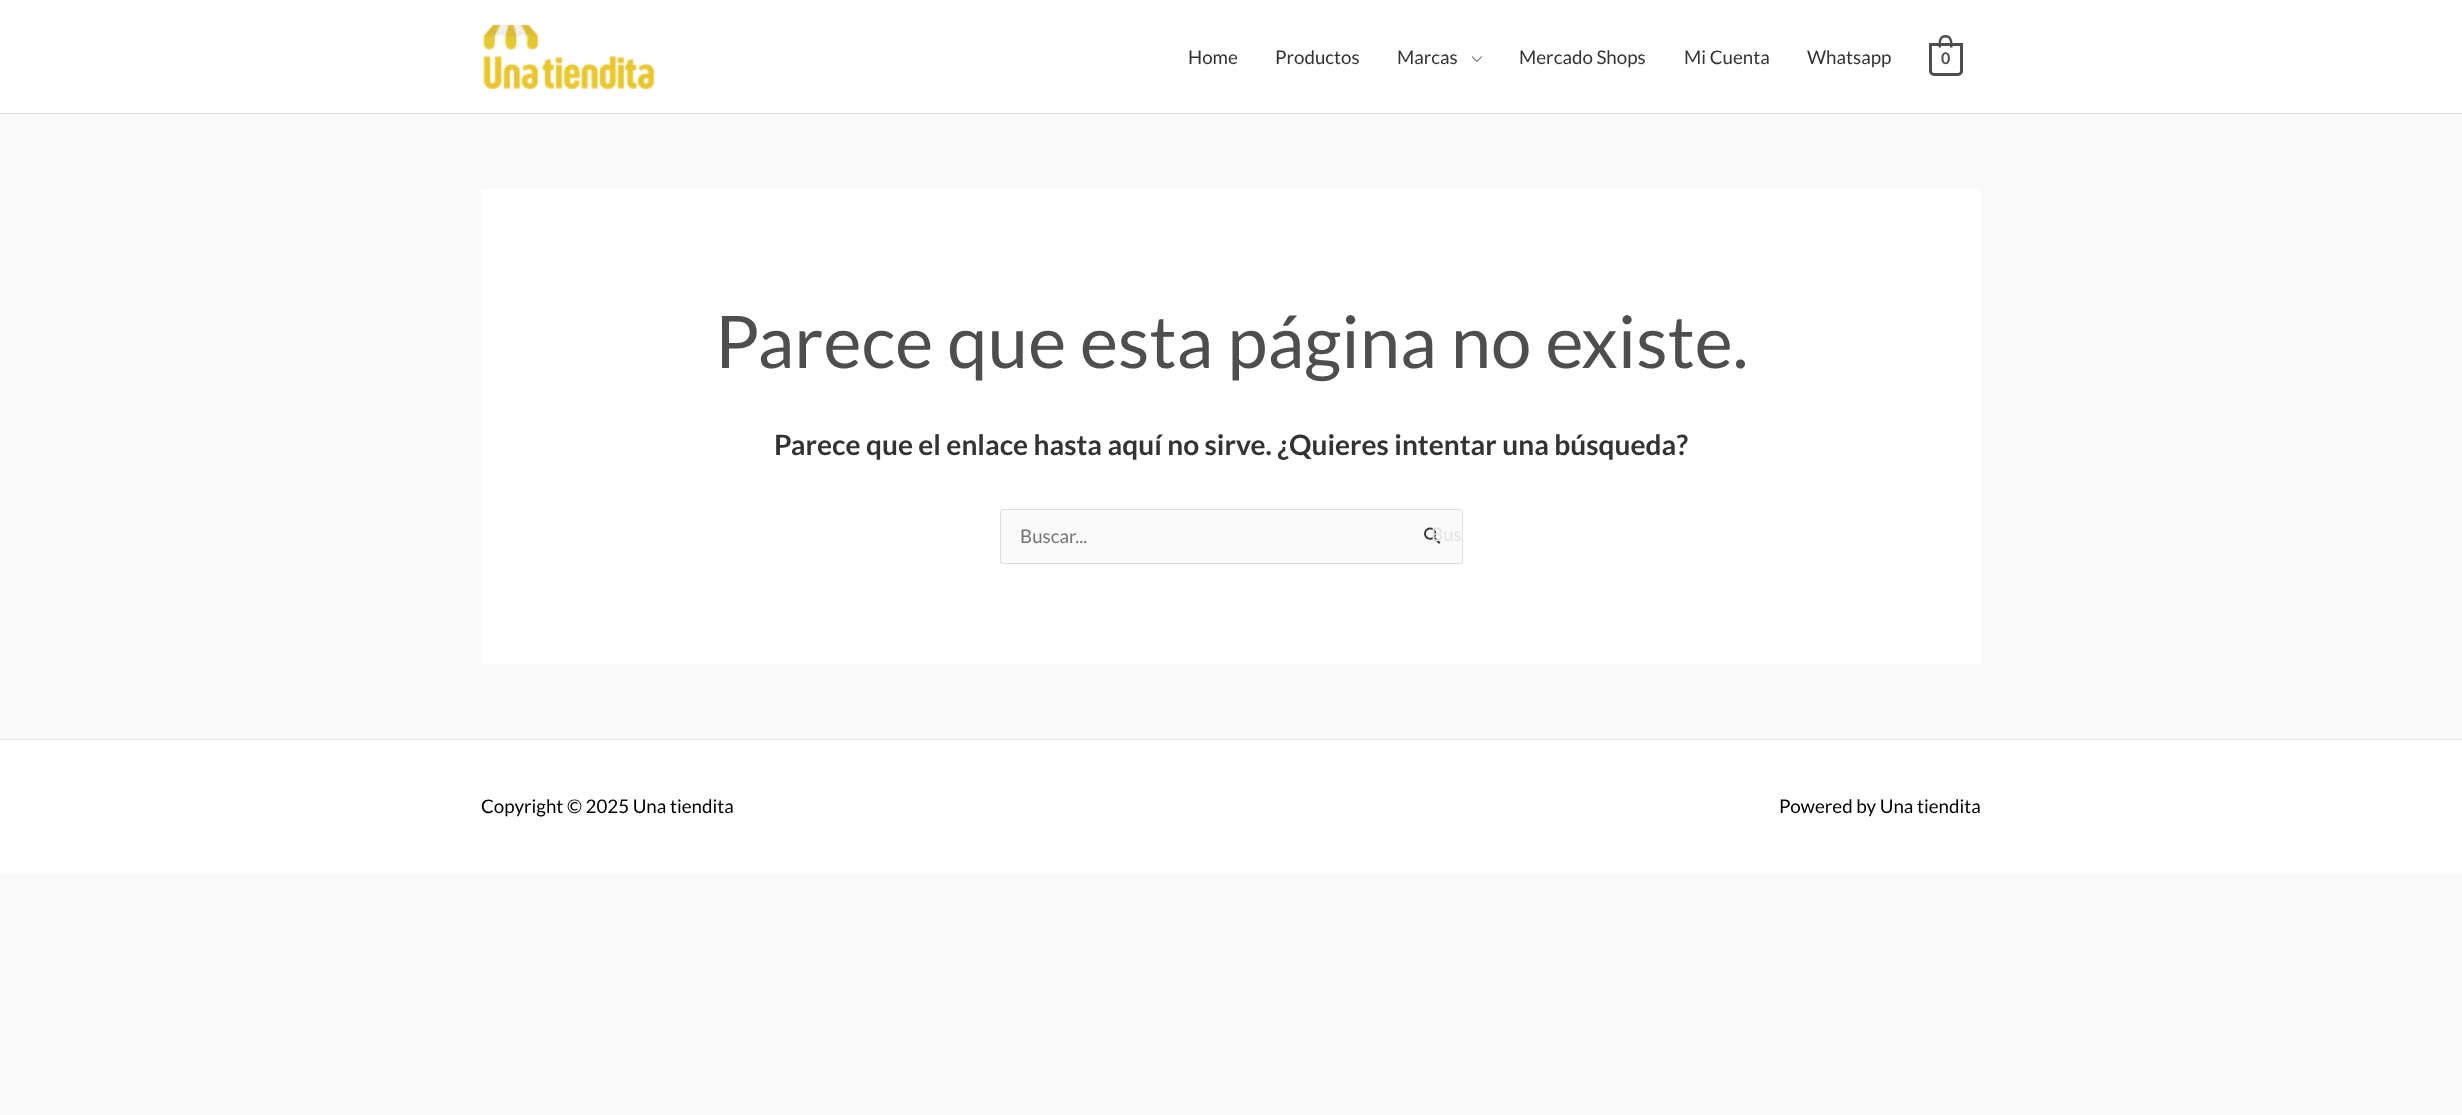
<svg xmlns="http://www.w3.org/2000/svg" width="2462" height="1115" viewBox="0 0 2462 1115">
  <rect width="100%" height="100%" fill="#f9f9f9"/>
  <path d="M0 0h2462v113H0z" fill="#fff"/>
  <path d="M0 113h2462v1H0z" fill="#ddd"/>
  <image x="482" y="23" width="173" height="67" href="img/1.png"/>
  <image x="1471" y="56" width="11" height="6" href="img/2.png"/>
  <path d="M1930.5 44.5H1961.5V71C1961.5 73 1960 74.5 1958 74.5H1934C1932 74.5 1930.5 73 1930.5 71Z" fill="none" stroke="#4e4e4e" stroke-width="3"/>
  <path d="M1945.5 35C1953 35 1952.5 42.5 1952.5 47.5H1938.5C1938.5 42.5 1938 35 1945.5 35ZM1945.5 37.5C1951 37.5 1950 44 1950 47.5H1941C1941 44 1940 37.5 1945.5 37.5Z" fill="#4e4e4e" fill-rule="evenodd"/>
  <path d="M481 189h1500v475H481z" fill="#fff"/>
  <rect x="1000.5" y="509.5" width="462" height="54" rx="2" fill="#fafafa" stroke="#ddd"/>
  <image x="1424" y="527" width="17" height="17" href="img/3.png"/>
  <path d="M0 739h2462v1H0z" fill="#e8e8e8"/>
  <path d="M0 740h2462v134H0z" fill="#fff"/>
  <g font-family="Lato" font-size="18.75" fill="#333">
    <text x="1188" y="64">Home</text>
    <text x="1275" y="64">Productos</text>
    <text x="1397" y="64">Marcas</text>
    <text x="1519" y="64">Mercado Shops</text>
    <text x="1684" y="64">Mi Cuenta</text>
    <text x="1807" y="64">Whatsapp</text>
  </g>
  <text x="1941" y="64" font-family="Lato" font-size="16" font-weight="bold" fill="#4e4e4e">0</text>
  <text x="715" y="368" font-family="Lato" font-size="72.5" fill="#4e4e4e">Parece que esta página no existe.</text>
  <text x="774" y="455" font-family="Lato" font-size="28.1" font-weight="bold" fill="#333">Parece que el enlace hasta aquí no sirve. ¿Quieres intentar una búsqueda?</text>
  <text x="1020" y="543" font-family="Lato" font-size="18.75" fill="#757575">Buscar...</text>
  <text x="1431" y="541" font-family="Lato" font-size="18.75" fill="#e3e3e3">Bus</text>
  <g font-family="Lato" font-size="18.75" fill="#000">
    <text x="481" y="813">Copyright © 2025 Una tiendita</text>
    <text x="1779" y="813">Powered by Una tiendita</text>
  </g>
</svg>
